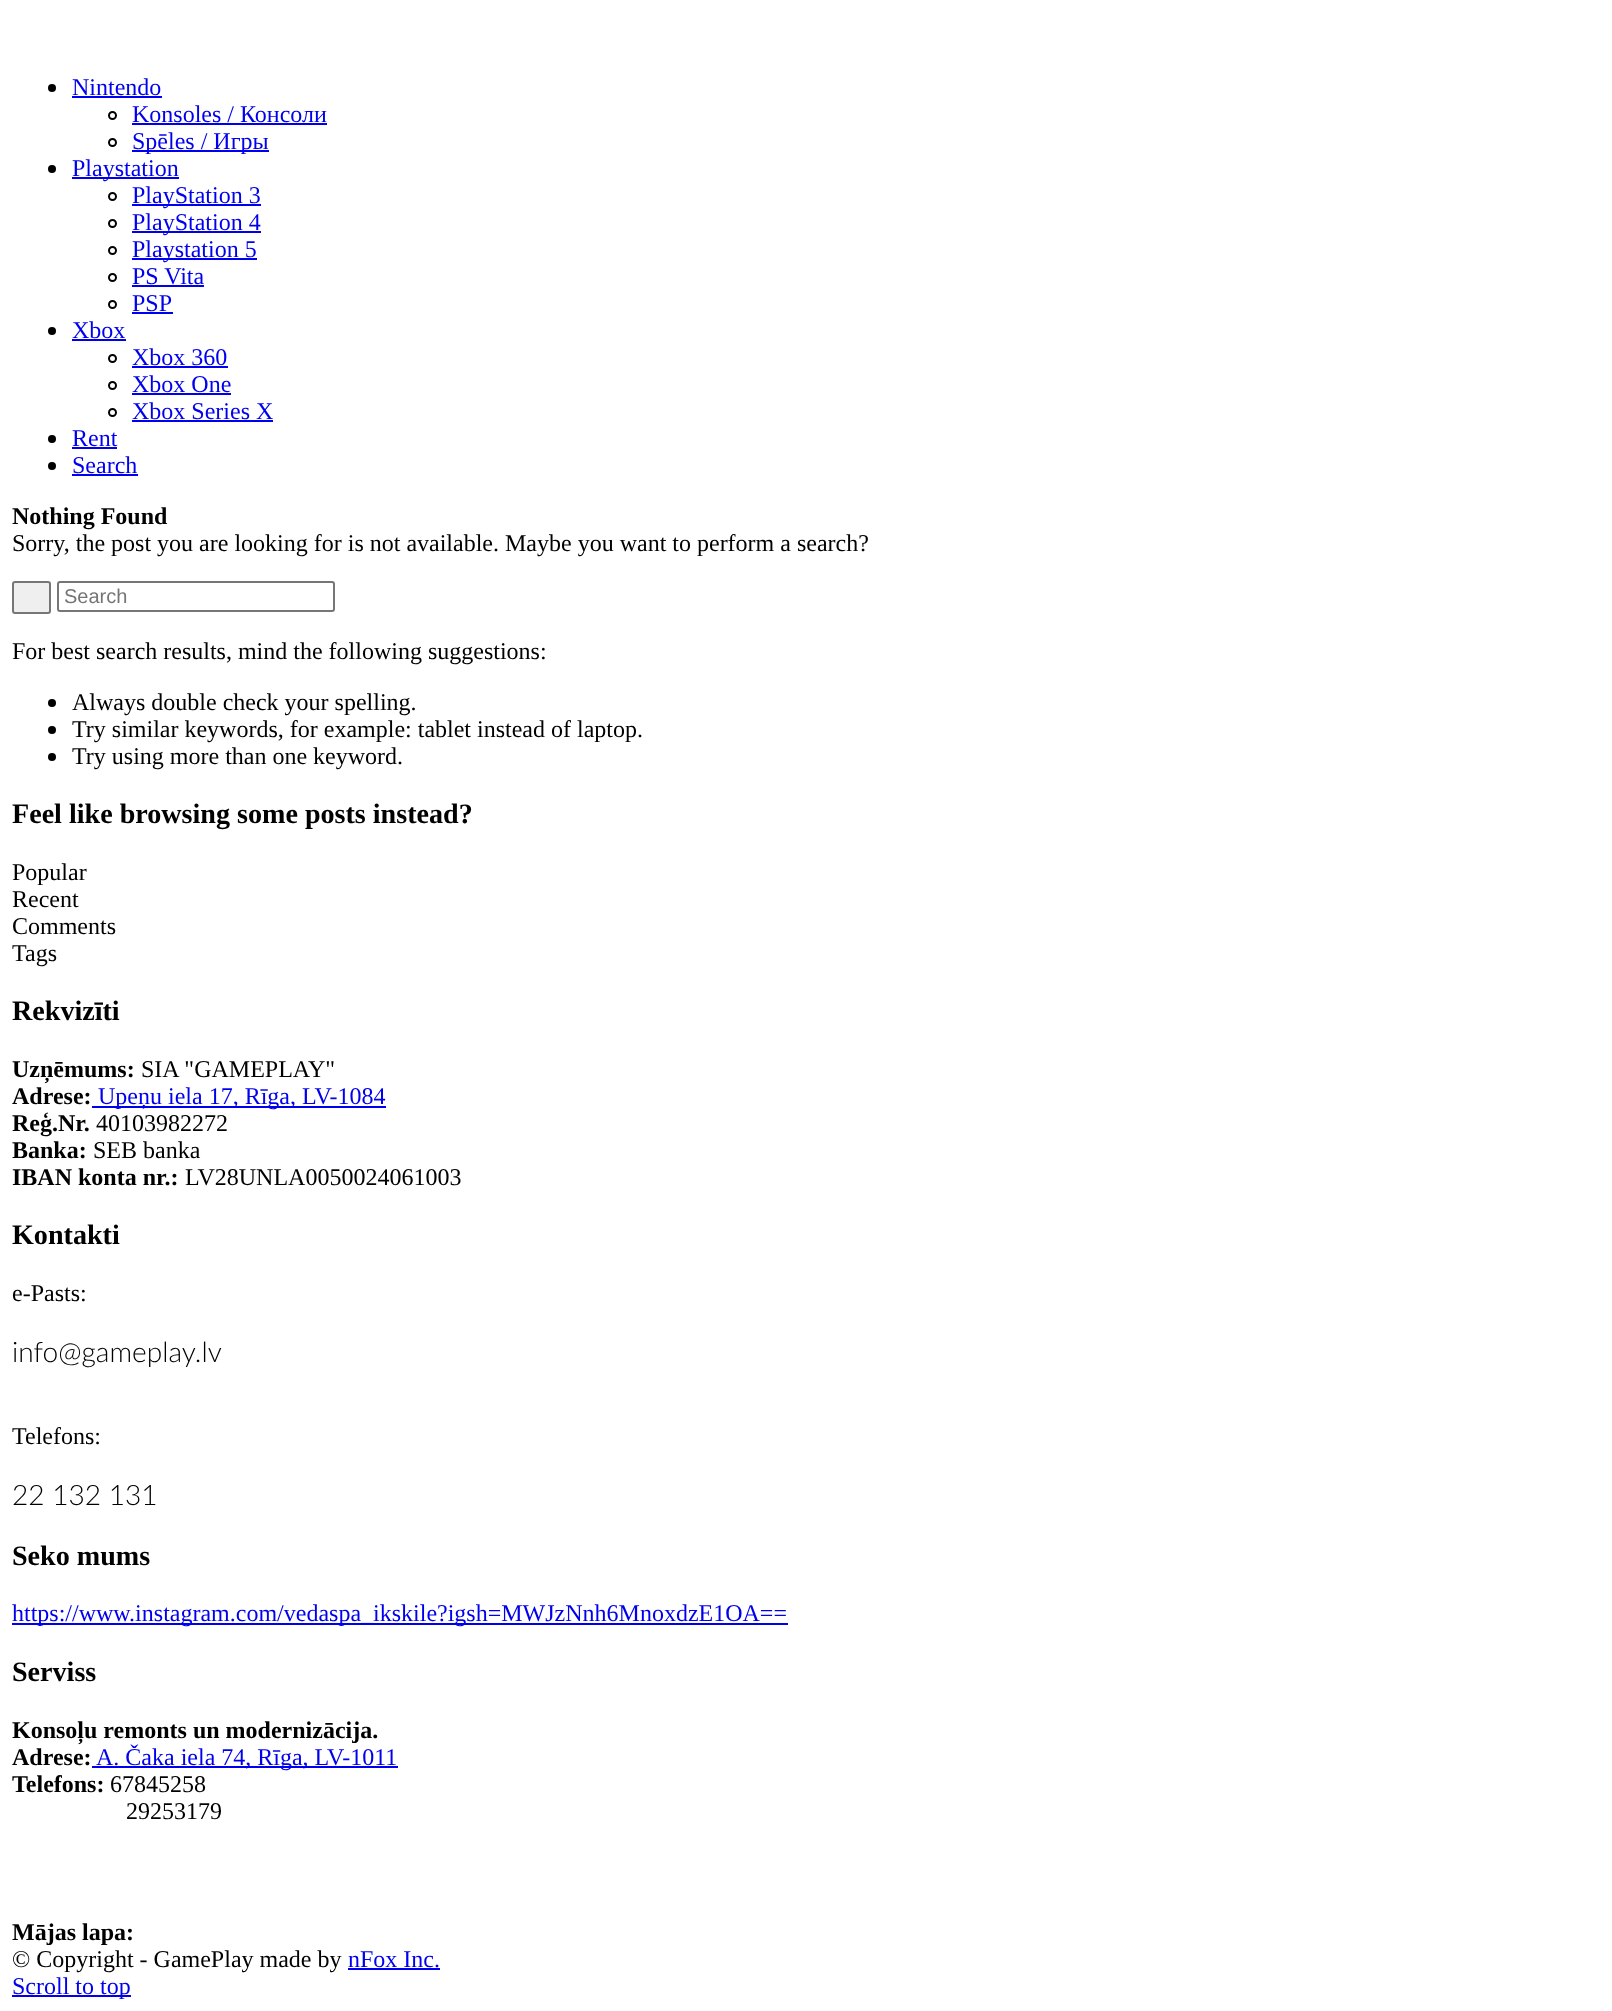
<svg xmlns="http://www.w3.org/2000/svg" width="1612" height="2011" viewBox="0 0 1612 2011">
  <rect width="100%" height="100%" fill="#fff"/>
  <circle cx="52" cy="88" r="4" fill="#000"/>
  <path d="M72 96h90v2H72z" fill="#00e"/>
  <circle cx="112.5" cy="115.5" r="3.5" fill="none" stroke="#000" stroke-width="2"/>
  <path d="M132 123h195v2H132z" fill="#00e"/>
  <circle cx="112.5" cy="142.5" r="3.5" fill="none" stroke="#000" stroke-width="2"/>
  <path d="M132 150h137v2H132z" fill="#00e"/>
  <circle cx="52" cy="169" r="4" fill="#000"/>
  <path d="M72 177h107v2H72z" fill="#00e"/>
  <circle cx="112.5" cy="196.5" r="3.5" fill="none" stroke="#000" stroke-width="2"/>
  <path d="M132 204h129v2H132z" fill="#00e"/>
  <circle cx="112.5" cy="223.5" r="3.5" fill="none" stroke="#000" stroke-width="2"/>
  <path d="M132 231h129v2H132z" fill="#00e"/>
  <circle cx="112.5" cy="250.5" r="3.5" fill="none" stroke="#000" stroke-width="2"/>
  <path d="M132 258h125v2H132z" fill="#00e"/>
  <circle cx="112.5" cy="277.5" r="3.5" fill="none" stroke="#000" stroke-width="2"/>
  <path d="M132 285h72v2H132z" fill="#00e"/>
  <circle cx="112.5" cy="304.5" r="3.5" fill="none" stroke="#000" stroke-width="2"/>
  <path d="M132 312h41v2H132z" fill="#00e"/>
  <circle cx="52" cy="331" r="4" fill="#000"/>
  <path d="M72 339h54v2H72z" fill="#00e"/>
  <circle cx="112.5" cy="358.5" r="3.5" fill="none" stroke="#000" stroke-width="2"/>
  <path d="M132 366h96v2H132z" fill="#00e"/>
  <circle cx="112.5" cy="385.5" r="3.5" fill="none" stroke="#000" stroke-width="2"/>
  <path d="M132 393h99v2H132z" fill="#00e"/>
  <circle cx="112.5" cy="412.5" r="3.5" fill="none" stroke="#000" stroke-width="2"/>
  <path d="M132 420h141v2H132z" fill="#00e"/>
  <circle cx="52" cy="439" r="4" fill="#000"/>
  <path d="M72 447h45v2H72z" fill="#00e"/>
  <circle cx="52" cy="466" r="4" fill="#000"/>
  <path d="M72 474h66v2H72z" fill="#00e"/>
  <rect x="13" y="582" width="37" height="31" rx="2" fill="#efefef" stroke="#767676" stroke-width="2"/>
  <rect x="58" y="582" width="276" height="29" rx="2" fill="none" stroke="#767676" stroke-width="2"/>
  <circle cx="52" cy="703" r="4" fill="#000"/>
  <circle cx="52" cy="730" r="4" fill="#000"/>
  <circle cx="52" cy="757" r="4" fill="#000"/>
  <path d="M92 1106h294v2H92z" fill="#00e"/>
  <path d="M12 1623h776v2H12z" fill="#00e"/>
  <path d="M92 1766h306v2H92z" fill="#00e"/>
  <path d="M348 1968h92v2H348z" fill="#00e"/>
  <path d="M12 1995h119v2H12z" fill="#00e"/>
  <g font-family="Liberation Serif" font-size="24" fill="#00e">
    <text x="72" y="95">Nintendo</text>
    <text x="132" y="122">Konsoles / Консоли</text>
    <text x="132" y="149">Spēles / Игры</text>
    <text x="72" y="176">Playstation</text>
    <text x="132" y="203">PlayStation 3</text>
    <text x="132" y="230">PlayStation 4</text>
    <text x="132" y="257">Playstation 5</text>
    <text x="132" y="284">PS Vita</text>
    <text x="132" y="311">PSP</text>
    <text x="72" y="338">Xbox</text>
    <text x="132" y="365">Xbox 360</text>
    <text x="132" y="392">Xbox One</text>
    <text x="132" y="419">Xbox Series X</text>
    <text x="72" y="446">Rent</text>
    <text x="72" y="473">Search</text>
  </g>
  <text x="12" y="524" font-family="Liberation Serif" font-size="24" font-weight="bold" fill="#000">Nothing Found</text>
  <text x="12" y="551" font-family="Liberation Serif" font-size="24" fill="#000">Sorry, the post you are looking for is not available. Maybe you want to perform a search?</text>
  <text x="64" y="603" font-family="Liberation Sans" font-size="20" fill="#757575">Search</text>
  <g font-family="Liberation Serif" font-size="24" fill="#000">
    <text x="12" y="659">For best search results, mind the following suggestions:</text>
    <text x="72" y="710">Always double check your spelling.</text>
    <text x="72" y="737">Try similar keywords, for example: tablet instead of laptop.</text>
    <text x="72" y="764">Try using more than one keyword.</text>
  </g>
  <text x="12" y="823" font-family="Liberation Serif" font-size="28.1" font-weight="bold" fill="#000">Feel like browsing some posts instead?</text>
  <g font-family="Liberation Serif" font-size="24" fill="#000">
    <text x="12" y="880">Popular</text>
    <text x="12" y="907">Recent</text>
    <text x="12" y="934">Comments</text>
    <text x="12" y="961">Tags</text>
  </g>
  <text x="12" y="1020" font-family="Liberation Serif" font-size="28.1" font-weight="bold" fill="#000">Rekvizīti</text>
  <text x="12" y="1077" font-family="Liberation Serif" font-size="24" font-weight="bold" fill="#000">Uzņēmums:</text>
  <text x="141" y="1077" font-family="Liberation Serif" font-size="24" fill="#000">SIA "GAMEPLAY"</text>
  <text x="12" y="1104" font-family="Liberation Serif" font-size="24" font-weight="bold" fill="#000">Adrese:</text>
  <text x="98" y="1104" font-family="Liberation Serif" font-size="24" fill="#00e">Upeņu iela 17, Rīga, LV-1084</text>
  <text x="12" y="1131" font-family="Liberation Serif" font-size="24" font-weight="bold" fill="#000">Reģ.Nr.</text>
  <text x="96" y="1131" font-family="Liberation Serif" font-size="24" fill="#000">40103982272</text>
  <text x="12" y="1158" font-family="Liberation Serif" font-size="24" font-weight="bold" fill="#000">Banka:</text>
  <text x="93" y="1158" font-family="Liberation Serif" font-size="24" fill="#000">SEB banka</text>
  <text x="12" y="1185" font-family="Liberation Serif" font-size="24" font-weight="bold" fill="#000">IBAN konta nr.:</text>
  <text x="185" y="1185" font-family="Liberation Serif" font-size="24" fill="#000">LV28UNLA0050024061003</text>
  <text x="12" y="1244" font-family="Liberation Serif" font-size="28.1" font-weight="bold" fill="#000">Kontakti</text>
  <text x="12" y="1301" font-family="Liberation Serif" font-size="24" fill="#000">e-Pasts:</text>
  <text x="12" y="1362" font-family="Lato" font-size="28.1" font-weight="300" fill="#000">info@gameplay.lv</text>
  <text x="12" y="1444" font-family="Liberation Serif" font-size="24" fill="#000">Telefons:</text>
  <text x="12" y="1505" font-family="Lato" font-size="28.1" font-weight="300" fill="#000">22 132 131</text>
  <text x="12" y="1565" font-family="Liberation Serif" font-size="28.1" font-weight="bold" fill="#000">Seko mums</text>
  <text x="12" y="1621" font-family="Liberation Serif" font-size="24" fill="#00e">https://www.instagram.com/vedaspa_ikskile?igsh=MWJzNnh6MnoxdzE1OA==</text>
  <text x="12" y="1681" font-family="Liberation Serif" font-size="28.1" font-weight="bold" fill="#000">Serviss</text>
  <g font-family="Liberation Serif" font-size="24" font-weight="bold" fill="#000">
    <text x="12" y="1738">Konsoļu remonts un modernizācija.</text>
    <text x="12" y="1765">Adrese:</text>
  </g>
  <text x="96" y="1765" font-family="Liberation Serif" font-size="24" fill="#00e">A. Čaka iela 74, Rīga, LV-1011</text>
  <text x="12" y="1792" font-family="Liberation Serif" font-size="24" font-weight="bold" fill="#000">Telefons:</text>
  <g font-family="Liberation Serif" font-size="24" fill="#000">
    <text x="110" y="1792">67845258</text>
    <text x="126" y="1819">29253179</text>
  </g>
  <text x="12" y="1940" font-family="Liberation Serif" font-size="24" font-weight="bold" fill="#000">Mājas lapa:</text>
  <text x="12" y="1967" font-family="Liberation Serif" font-size="24" fill="#000">© Copyright - GamePlay made by</text>
  <g font-family="Liberation Serif" font-size="24" fill="#00e">
    <text x="348" y="1967">nFox Inc.</text>
    <text x="12" y="1994">Scroll to top</text>
  </g>
</svg>
